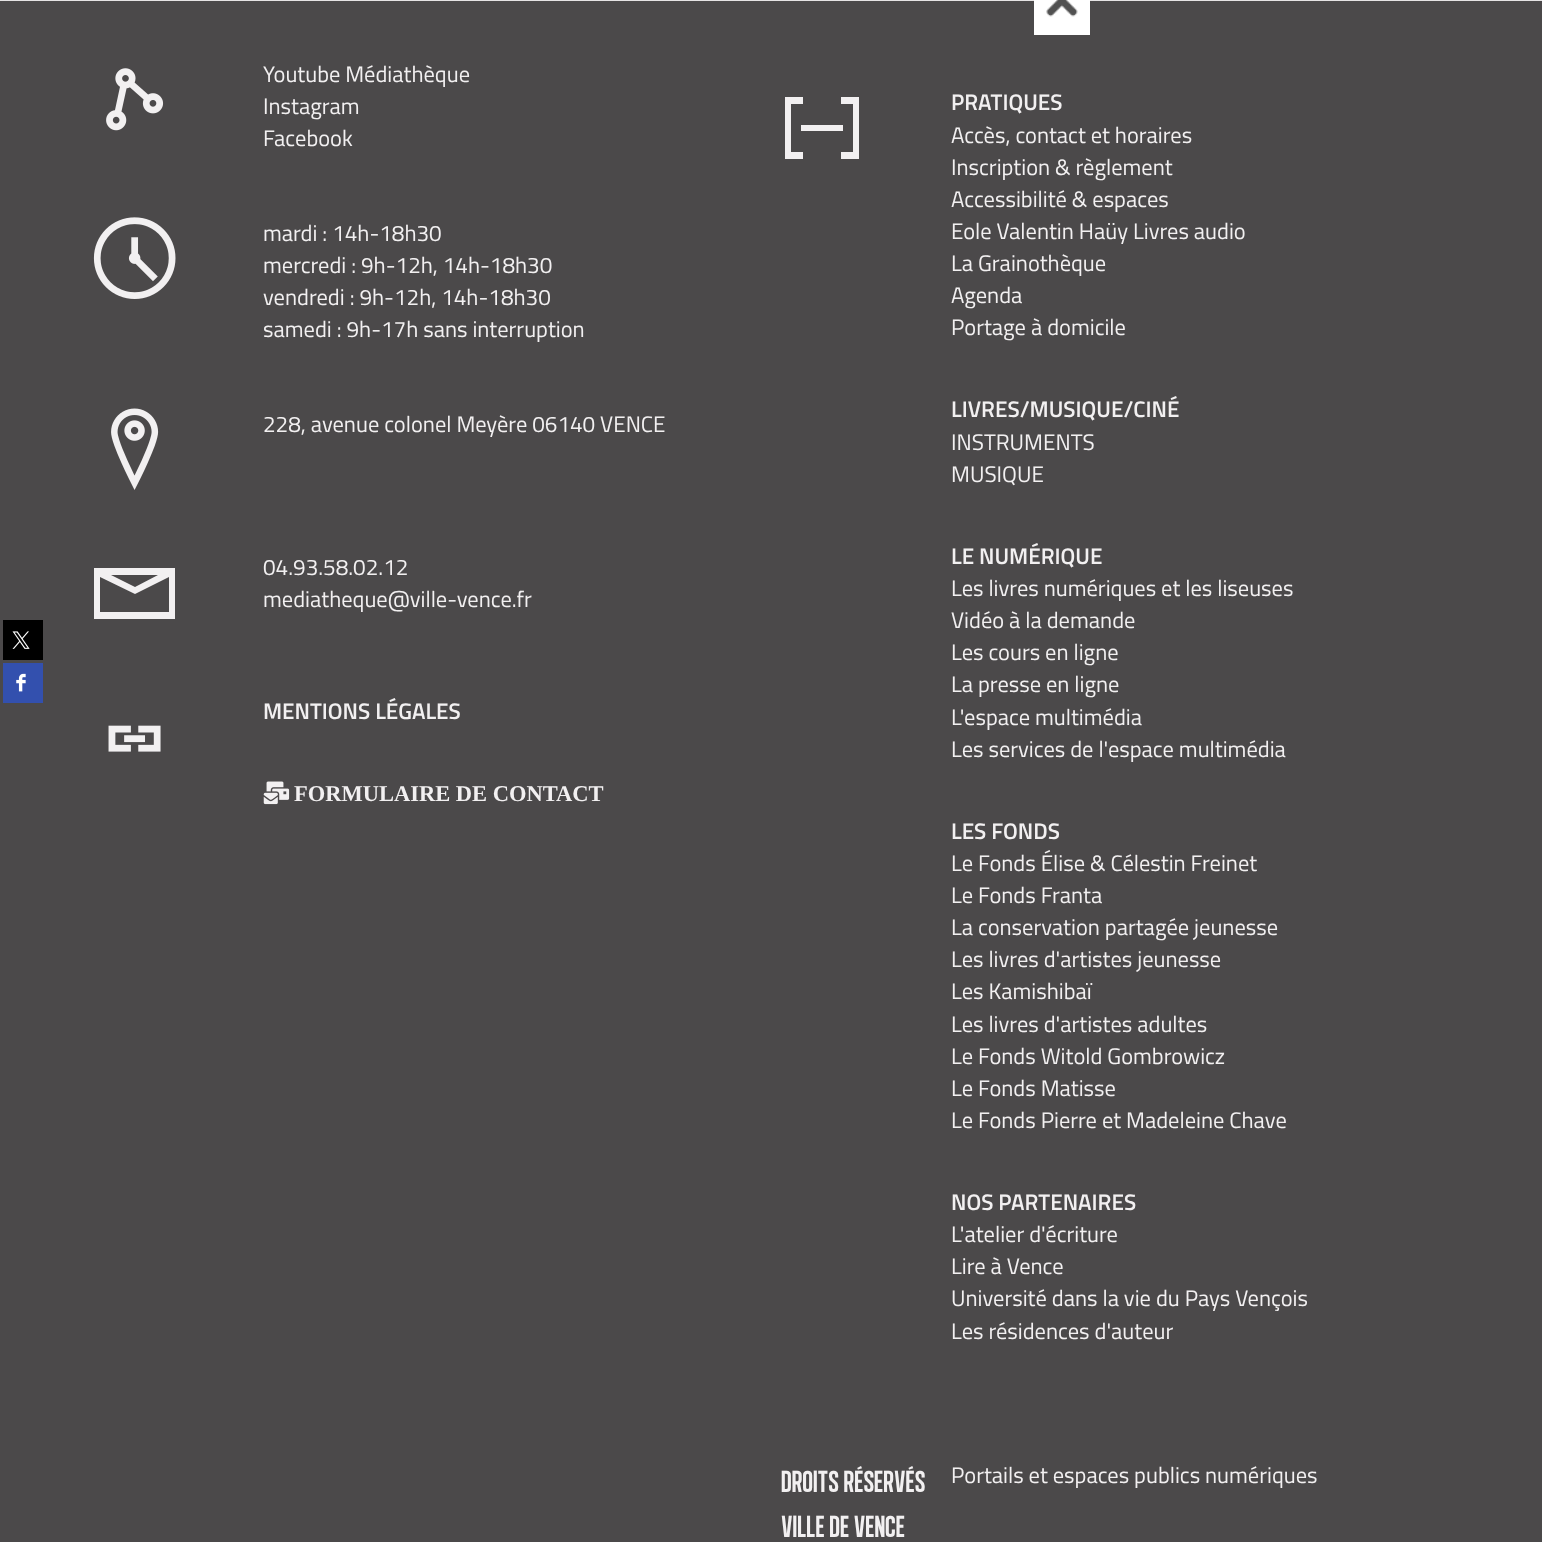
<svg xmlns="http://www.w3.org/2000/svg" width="1542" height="1542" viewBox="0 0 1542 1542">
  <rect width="100%" height="100%" fill="#e6e4e5"/>
  <path d="M0 1h1542v1541H0z" fill="#4b494a"/>
  <path d="M3 620h40v40H3z" fill="#000"/>
  <image x="12" y="631" width="18" height="18" href="img/1.png"/>
  <path d="M3 663h40v40H3z" fill="#3350ae"/>
  <image x="16" y="673" width="10" height="19" href="img/2.png"/>
  <path d="M1034 0h56v35H1034z" fill="#fff"/>
  <image x="1046" y="0" width="32" height="17" href="img/3.png"/>
  <image x="106" y="68" width="58" height="63" href="img/4.png"/>
  <image x="93" y="217" width="83" height="82" href="img/5.png"/>
  <image x="111" y="408" width="48" height="82" href="img/6.png"/>
  <path d="M94 568V619H175V568ZM158 575L135 587L111 575ZM100 612V577L135 594L169 577V612Z" fill="#f2f0f1"/>
  <image x="108" y="725" width="53" height="27" href="img/7.png"/>
  <image x="263" y="781" width="27" height="24" href="img/8.png"/>
  <path d="M801 125H843V131H801ZM791 104H803V97H785V159H803V152H791ZM841 97V104H853V152H841V159H859V97Z" fill="#f2f0f1"/>
  <g font-family="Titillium" font-size="22.5" fill="#f2f0f1">
    <text x="263" y="82">Youtube Médiathèque</text>
    <text x="263" y="114">Instagram</text>
    <text x="263" y="146">Facebook</text>
    <text x="263" y="241">mardi : 14h-18h30</text>
    <text x="263" y="273">mercredi : 9h-12h, 14h-18h30</text>
    <text x="263" y="305">vendredi : 9h-12h, 14h-18h30</text>
    <text x="263" y="337">samedi : 9h-17h sans interruption</text>
    <text x="263" y="432">228, avenue colonel Meyère 06140 VENCE</text>
    <text x="263" y="575">04.93.58.02.12</text>
    <text x="263" y="607">mediatheque@ville-vence.fr</text>
  </g>
  <text x="263" y="719" font-family="Titillium" font-size="22.5" font-weight="600" fill="#f2f0f1">MENTIONS LÉGALES</text>
  <text x="294" y="801" font-family="Liberation Serif" font-size="22.5" font-weight="bold" fill="#f2f0f1">FORMULAIRE DE CONTACT</text>
  <text x="951" y="110" font-family="Titillium" font-size="22.5" font-weight="600" fill="#f2f0f1">PRATIQUES</text>
  <g font-family="Titillium" font-size="22.5" fill="#f2f0f1">
    <text x="951" y="143">Accès, contact et horaires</text>
    <text x="951" y="175">Inscription &amp; règlement</text>
    <text x="951" y="207">Accessibilité &amp; espaces</text>
    <text x="951" y="239">Eole Valentin Haüy Livres audio</text>
    <text x="951" y="271">La Grainothèque</text>
    <text x="951" y="303">Agenda</text>
    <text x="951" y="335">Portage à domicile</text>
  </g>
  <text x="951" y="417" font-family="Titillium" font-size="22.5" font-weight="600" fill="#f2f0f1">LIVRES/MUSIQUE/CINÉ</text>
  <g font-family="Titillium" font-size="22.5" fill="#f2f0f1">
    <text x="951" y="450">INSTRUMENTS</text>
    <text x="951" y="482">MUSIQUE</text>
  </g>
  <text x="951" y="564" font-family="Titillium" font-size="22.5" font-weight="600" fill="#f2f0f1">LE NUMÉRIQUE</text>
  <g font-family="Titillium" font-size="22.5" fill="#f2f0f1">
    <text x="951" y="596">Les livres numériques et les liseuses</text>
    <text x="951" y="628">Vidéo à la demande</text>
    <text x="951" y="660">Les cours en ligne</text>
    <text x="951" y="692">La presse en ligne</text>
    <text x="951" y="725">L'espace multimédia</text>
    <text x="951" y="757">Les services de l'espace multimédia</text>
  </g>
  <text x="951" y="839" font-family="Titillium" font-size="22.5" font-weight="600" fill="#f2f0f1">LES FONDS</text>
  <g font-family="Titillium" font-size="22.5" fill="#f2f0f1">
    <text x="951" y="871">Le Fonds Élise &amp; Célestin Freinet</text>
    <text x="951" y="903">Le Fonds Franta</text>
    <text x="951" y="935">La conservation partagée jeunesse</text>
    <text x="951" y="967">Les livres d'artistes jeunesse</text>
    <text x="951" y="999">Les Kamishibaï</text>
    <text x="951" y="1032">Les livres d'artistes adultes</text>
    <text x="951" y="1064">Le Fonds Witold Gombrowicz</text>
    <text x="951" y="1096">Le Fonds Matisse</text>
    <text x="951" y="1128">Le Fonds Pierre et Madeleine Chave</text>
  </g>
  <text x="951" y="1210" font-family="Titillium" font-size="22.5" font-weight="600" fill="#f2f0f1">NOS PARTENAIRES</text>
  <g font-family="Titillium" font-size="22.5" fill="#f2f0f1">
    <text x="951" y="1242">L'atelier d'écriture</text>
    <text x="951" y="1274">Lire à Vence</text>
    <text x="951" y="1306">Université dans la vie du Pays Vençois</text>
    <text x="951" y="1339">Les résidences d'auteur</text>
  </g>
  <g font-family="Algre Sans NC" font-size="31.25" fill="#f2f0f1">
    <text x="781" y="1492">DROITS RÉSERVÉS</text>
    <text x="781" y="1537">VILLE DE VENCE</text>
  </g>
  <text x="951" y="1483" font-family="Titillium" font-size="22.5" fill="#f2f0f1">Portails et espaces publics numériques</text>
</svg>
